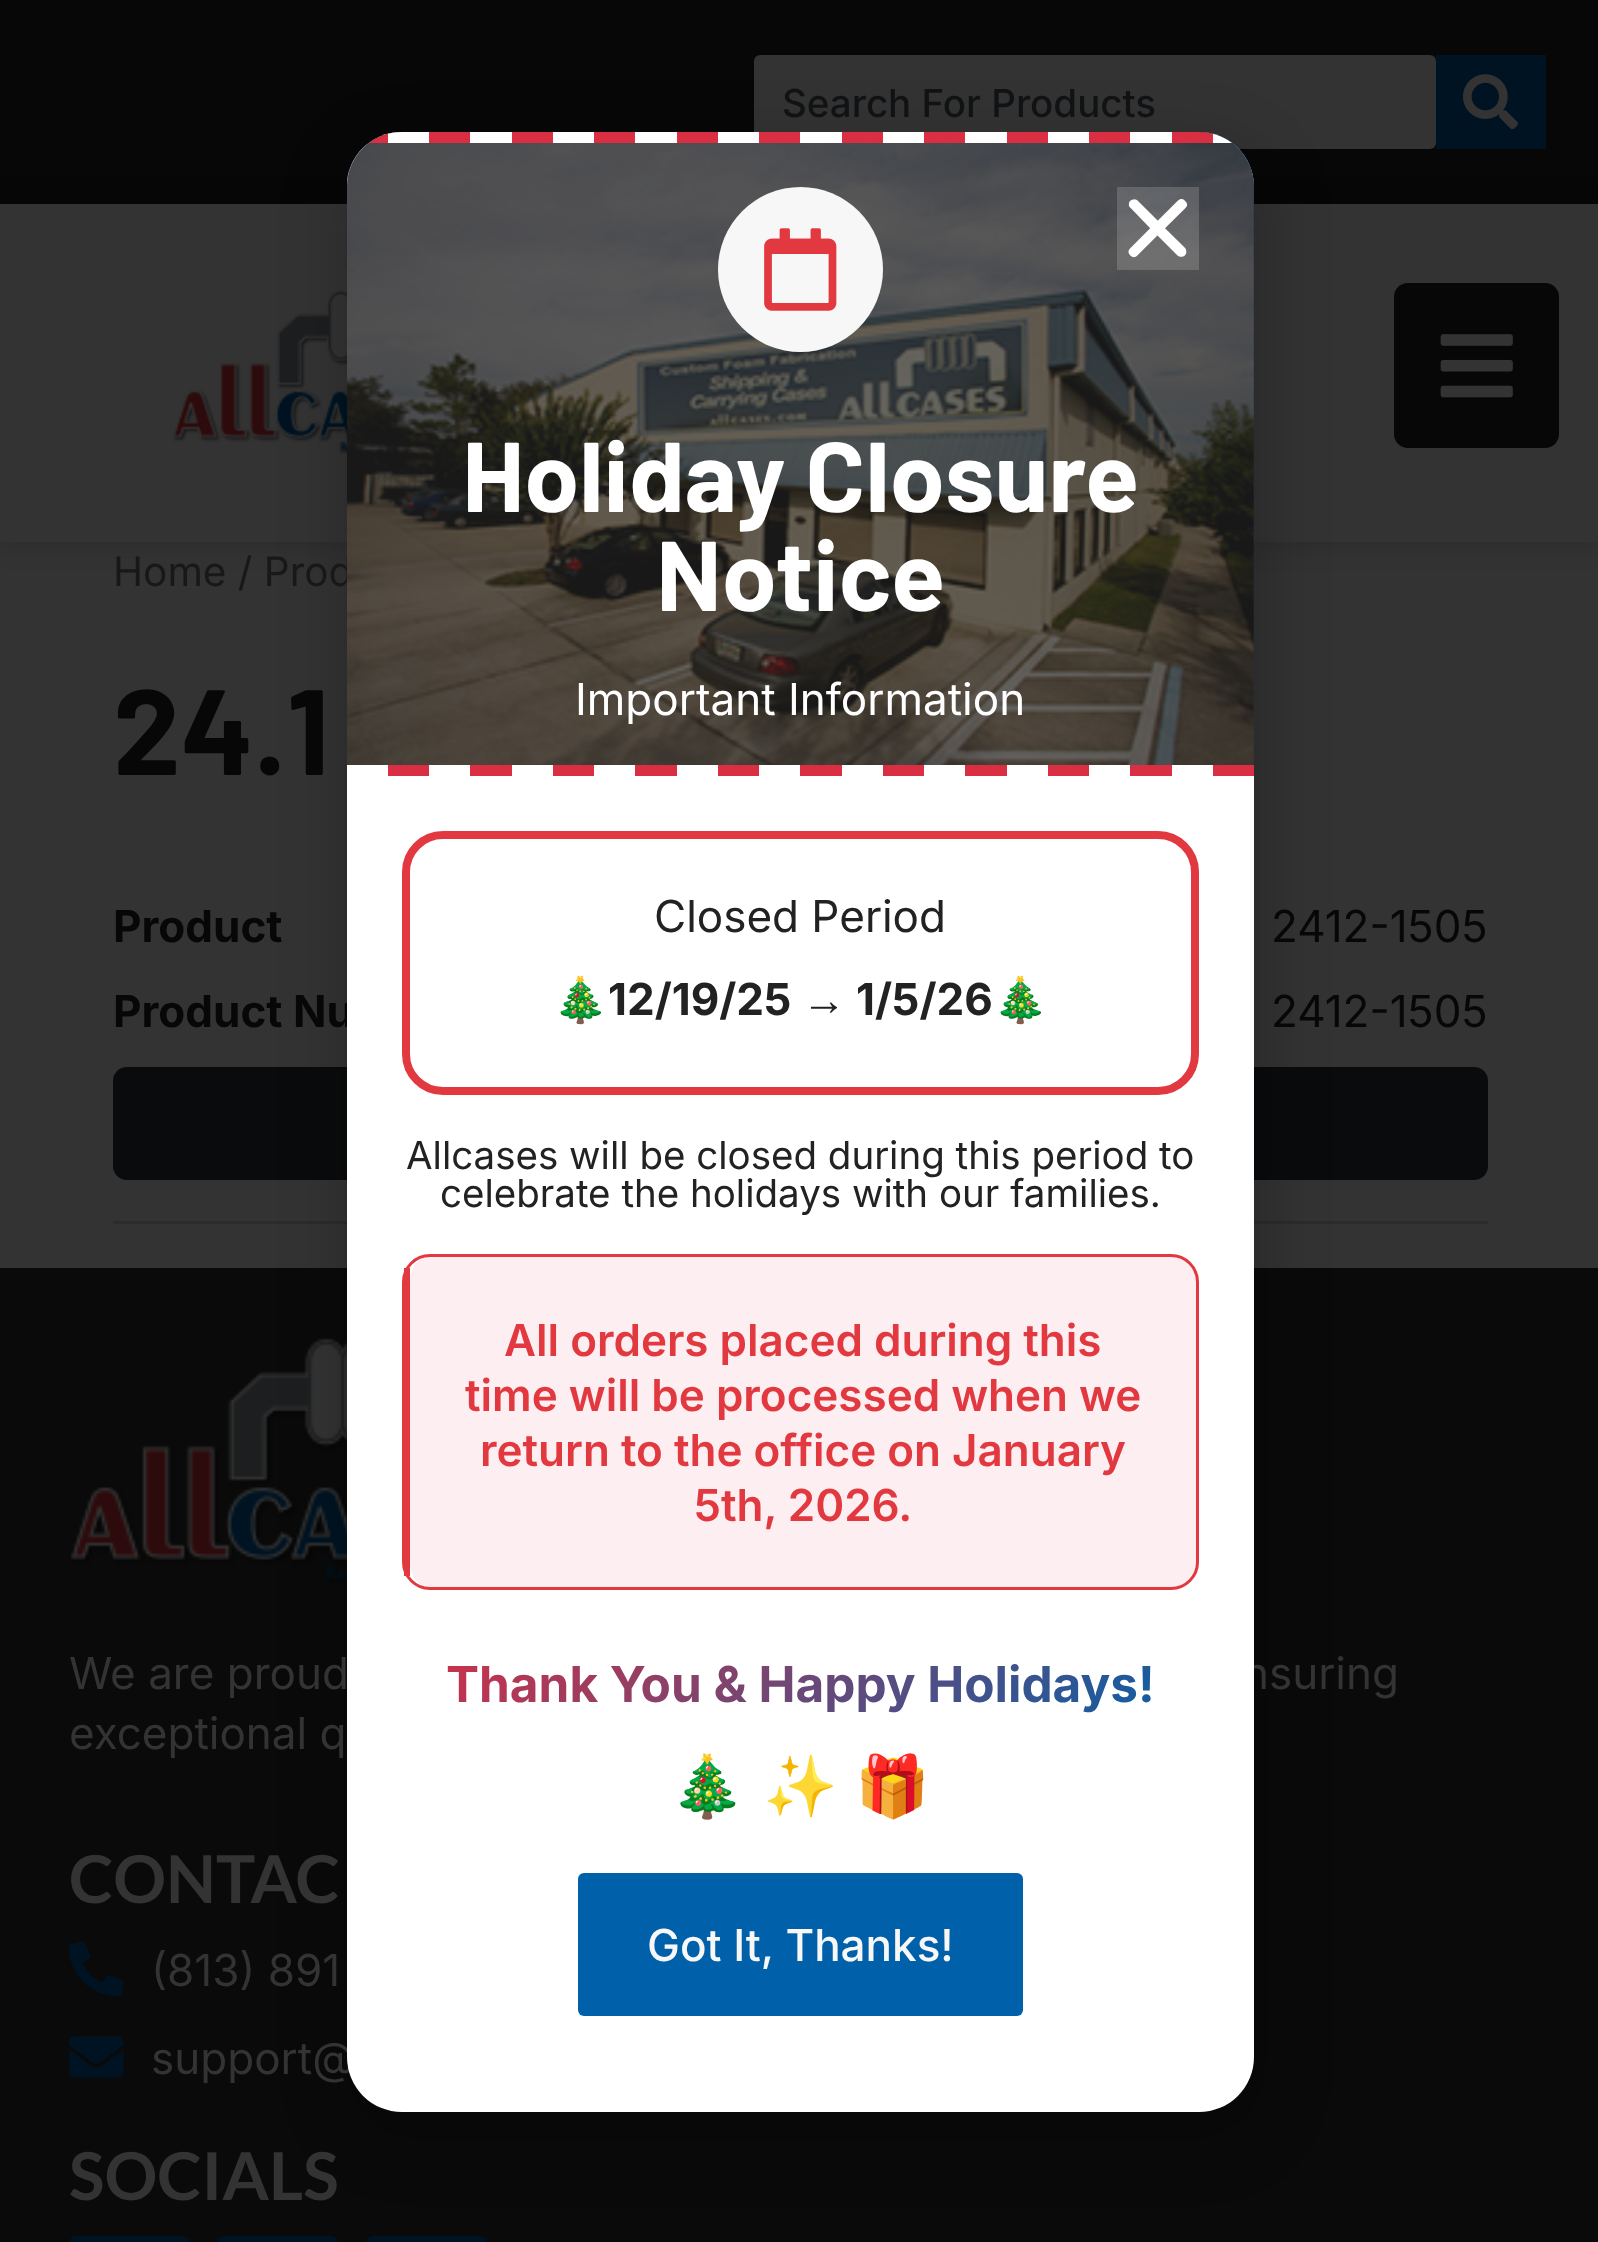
<svg xmlns="http://www.w3.org/2000/svg" width="1598" height="2242" viewBox="0 0 1598 2242">
  <defs>
    <linearGradient id="g1" gradientUnits="userSpaceOnUse" x1="573" y1="1459" x2="1027" y2="1913"><stop offset="0" stop-color="#da2e43"/><stop offset="1" stop-color="#0061aa"/></linearGradient>
  </defs>
  <rect width="100%" height="100%" fill="#333"/>
  <path d="M0 0h1598v204H0z" fill="#070707"/>
  <rect x="754" y="55" width="682" height="94" rx="6" fill="#333"/>
  <path d="M1436 55h110v94H1436z" fill="#001322"/>
  <image x="1463" y="74" width="55" height="55" href="img/1.png"/>
  <path d="M0 204h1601v338H0z" fill="#00000033" filter="blur(14px)"/>
  <path d="M0 204h1598v338H0z" fill="#333"/>
  <image x="172" y="290" width="175" height="165" href="img/2.png"/>
  <rect x="1394" y="283" width="165" height="165" rx="14" fill="#070707"/>
  <image x="1440" y="334" width="73" height="64" href="img/3.png"/>
  <path d="M113 1221h1375v3H113z" fill="#2c2c2c"/>
  <rect x="113" y="1067" width="1375" height="113" rx="14" fill="#0a0b0c"/>
  <path d="M0 1268h1598v974H0z" fill="#0a0a0a"/>
  <image x="70" y="1338" width="277" height="246" href="img/9.png"/>
  <rect x="217" y="2236" width="121" height="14" rx="8" fill="#001322"/>
  <rect x="366" y="2236" width="121" height="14" rx="8" fill="#001322"/>
  <rect x="344" y="146" width="924" height="1996" rx="63" fill="#00000033" filter="blur(31.5px)"/>
  <image x="69" y="1942" width="55" height="55" href="img/10.png"/>
  <image x="69" y="2036" width="55" height="42" href="img/11.png"/>
  <rect x="69" y="2236" width="121" height="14" rx="8" fill="#001322"/>
  <text x="782" y="117" font-family="Inter" font-size="38.5" font-weight="500" fill="#101214">Search For Products</text>
  <text x="113" y="586" font-family="Inter" font-size="40.5" fill="#181818">Home / Prod</text>
  <text x="113" y="775" font-family="Barlow" font-size="121" font-weight="bold" fill="#070707">24.1</text>
  <text x="113" y="942" font-family="Inter" font-size="44" font-weight="bold" fill="#070707">Product</text>
  <text x="1271" y="942" font-family="Inter" font-size="44" fill="#070707">2412-1505</text>
  <text x="113" y="1027" font-family="Inter" font-size="44" font-weight="bold" fill="#070707">Product Nu</text>
  <text x="1271" y="1027" font-family="Inter" font-size="44" fill="#070707">2412-1505</text>
  <g font-family="Inter" font-size="44" fill="#333">
    <text x="69" y="1689">We are proud</text>
    <text x="1243" y="1689">nsuring</text>
    <text x="69" y="1749">exceptional q</text>
  </g>
  <text x="69" y="1903" font-family="Lato" font-size="66" font-weight="bold" fill="#333">CONTAC</text>
  <g font-family="Inter" font-size="44" fill="#333">
    <text x="151" y="1986">(813) 891</text>
    <text x="151" y="2074">support@</text>
  </g>
  <rect x="347" y="132" width="907" height="1980" rx="55" fill="#fff"/>
  <path d="M402 132H1199C1229.5 132 1254 156.5 1254 187V776H347V187C347 156.5 371.5 132 402 132Z" fill="#0061aa"/>
  <image x="347" y="132" width="907" height="633" href="img/6.png"/>
  <path d="M402 132H1199C1229.5 132 1254 156.5 1254 187V776H347V187C347 156.5 371.5 132 402 132Z" fill="#222222b3"/>
  <path d="M1117 187h82v83H1117z" fill="#ececec2e"/>
  <image x="1128" y="199" width="60" height="59" href="img/4.png"/>
  <image x="347" y="765" width="907" height="11" href="img/8.png"/>
  <image x="369" y="132" width="863" height="11" href="img/5.png"/>
  <rect x="578" y="1873" width="445" height="143" rx="6" fill="#0061aa"/>
  <text x="647" y="1961" font-family="Inter" font-size="44" font-weight="500" fill="#f7f7f7">Got It, Thanks!</text>
  <g font-family="Noto Color Emoji" font-size="60" fill="#222">
    <text x="855" y="1807">🎁</text>
    <text x="763" y="1807">✨</text>
    <text x="670" y="1807">🎄</text>
  </g>
  <text x="446" y="1702" font-family="Inter" font-size="49.5" font-weight="bold" fill="url(#g1)">Thank You &amp; Happy Holidays!</text>
  <path d="M429 1257H1172C1185 1257 1196 1268 1196 1282V1562C1196 1576 1185 1587 1172 1587H429C418 1587 410 1576 410 1562V1282C410 1268 418 1257 429 1257Z" fill="#fdeff1"/>
  <rect x="403.5" y="1255.5" width="794" height="333" rx="26.5" fill="none" stroke="#e2383f" stroke-width="3"/>
  <g font-family="Inter" font-size="44" font-weight="600" fill="#e2383f">
    <text x="694" y="1521">5th, 2026.</text>
    <text x="480" y="1466">return to the office on January</text>
    <text x="465" y="1411">time will be processed when we</text>
    <text x="504" y="1356">All orders placed during this</text>
  </g>
  <path d="M404 1268h6v308H404z" fill="#e2383f"/>
  <g font-family="Inter" font-size="38.5" fill="#222">
    <text x="440" y="1207">celebrate the holidays with our families.</text>
    <text x="406" y="1169">Allcases will be closed during this period to</text>
  </g>
  <rect x="406" y="835" width="789" height="256" rx="37" fill="none" stroke="#e2383f" stroke-width="8"/>
  <text x="993" y="1015" font-family="Noto Color Emoji" font-size="44" font-weight="bold" fill="#222">🎄</text>
  <text x="856" y="1015" font-family="Inter" font-size="44" font-weight="bold" fill="#222">1/5/26</text>
  <text x="802" y="1015" font-family="Liberation Sans" font-size="44" font-weight="bold" fill="#222">→</text>
  <text x="608" y="1015" font-family="Inter" font-size="44" font-weight="bold" fill="#222">12/19/25</text>
  <text x="553" y="1015" font-family="Noto Color Emoji" font-size="44" font-weight="bold" fill="#222">🎄</text>
  <text x="654" y="932" font-family="Inter" font-size="44" fill="#222">Closed Period</text>
  <text x="575" y="715" font-family="Inter" font-size="44" fill="#fff">Important Information</text>
  <g font-family="Barlow" font-size="99" font-weight="bold" fill="#fff">
    <text x="656" y="611">Notice</text>
    <text x="462" y="512">Holiday Closure</text>
  </g>
  <circle cx="800.5" cy="269.5" r="82.5" fill="#f7f7f7"/>
  <image x="764" y="228" width="73" height="83" href="img/7.png"/>
  <text x="69" y="2200" font-family="Lato" font-size="66" font-weight="bold" fill="#333">SOCIALS</text>
</svg>
